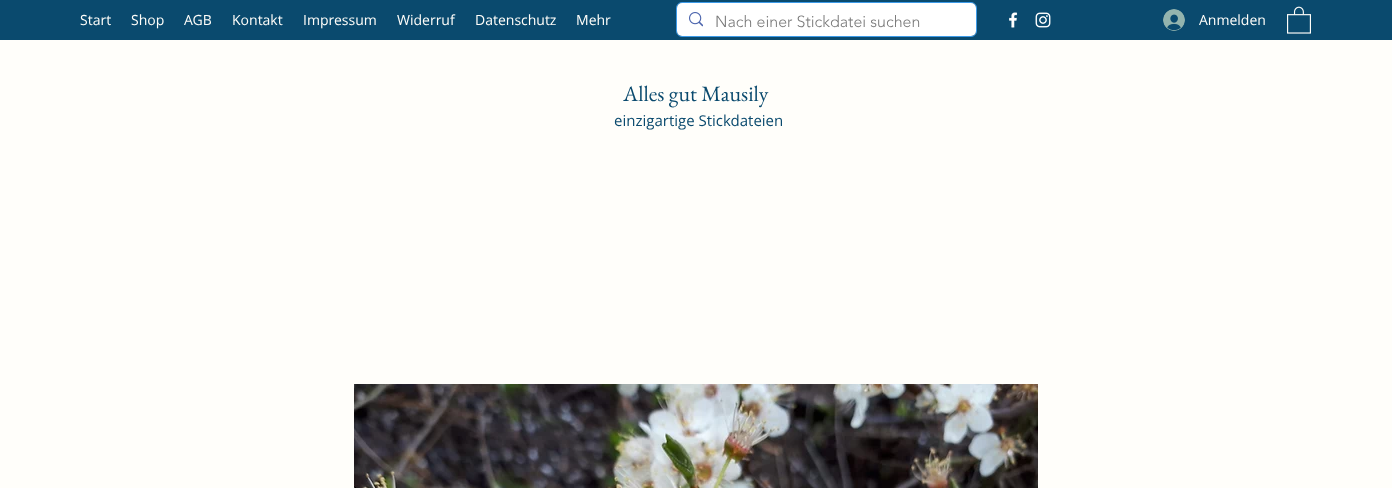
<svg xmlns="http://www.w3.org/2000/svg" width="1392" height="488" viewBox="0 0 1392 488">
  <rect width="100%" height="100%" fill="#fffefa"/>
  <path d="M0 0h1392v40H0z" fill="#0a4a6e"/>
  <image x="1009" y="12" width="9" height="16" href="img/1.png"/>
  <image x="1035" y="12" width="16" height="16" href="img/2.png"/>
  <image x="1163" y="9" width="22" height="22" href="img/3.png"/>
  <image x="1287" y="6" width="24" height="28" href="img/4.png"/>
  <rect x="676.5" y="2.5" width="300" height="34" rx="5.5" fill="none" stroke="#3d9be9"/>
  <rect x="677" y="3" width="299" height="33" rx="5" fill="#fff"/>
  <image x="689" y="12" width="14" height="15" href="img/5.png"/>
  <image x="354" y="384" width="684" height="104" href="img/6.png"/>
  <g font-family="Open Sans" font-size="14" fill="#fffefa">
    <text x="80" y="25">Start</text>
    <text x="131" y="25">Shop</text>
    <text x="184" y="25">AGB</text>
    <text x="232" y="25">Kontakt</text>
    <text x="303" y="25">Impressum</text>
    <text x="397" y="25">Widerruf</text>
    <text x="475" y="25">Datenschutz</text>
    <text x="576" y="25">Mehr</text>
    <text x="1199" y="25">Anmelden</text>
  </g>
  <text x="715" y="27" font-family="'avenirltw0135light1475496'" font-size="16" font-weight="300" fill="#787878">Nach einer Stickdatei suchen</text>
  <text x="623" y="101" font-family="EB Garamond" font-size="22" fill="#0a4a6e">Alles gut Mausily</text>
  <text x="614" y="126" font-family="Open Sans" font-size="15" fill="#0a4a6e">einzigartige Stickdateien</text>
</svg>
